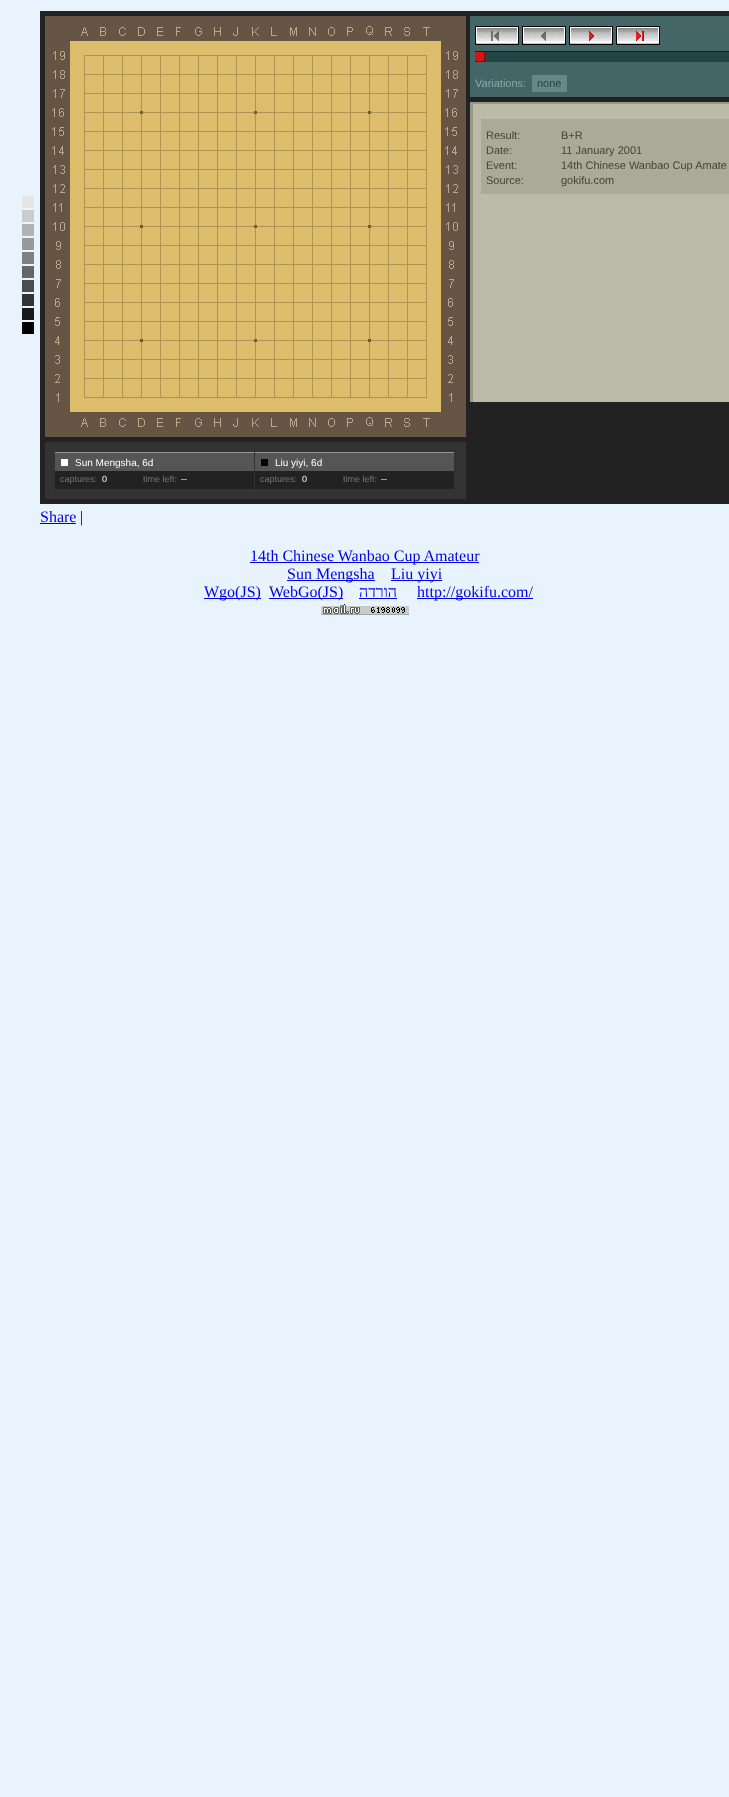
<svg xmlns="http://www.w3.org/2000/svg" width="729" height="1797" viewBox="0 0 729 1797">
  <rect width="100%" height="100%" fill="#e8f3fd"/>
  <path d="M22 196h12v12H22z" fill="#e5e5e5"/>
  <path d="M22 210h12v12H22z" fill="#ccc"/>
  <path d="M22 224h12v12H22z" fill="#b3b3b3"/>
  <path d="M22 238h12v12H22z" fill="#999"/>
  <path d="M22 252h12v12H22z" fill="#808080"/>
  <path d="M22 266h12v12H22z" fill="#666"/>
  <path d="M22 280h12v12H22z" fill="#4d4d4d"/>
  <path d="M22 294h12v12H22z" fill="#333"/>
  <path d="M22 308h12v12H22z" fill="#1a1a1a"/>
  <path d="M22 322h12v12H22z" fill="#000"/>
  <path d="M40 11h689v493H40z" fill="#222"/>
  <path d="M45 16h421v421H45z" fill="#654"/>
  <image x="52" y="26" width="406" height="401" href="img/1.png"/>
  <image x="70" y="41" width="371" height="371" href="img/2.png"/>
  <path d="M470 16h259v81H470z" fill="#466"/>
  <image x="475" y="26" width="44" height="19" href="img/3.png"/>
  <image x="522" y="26" width="44" height="19" href="img/4.png"/>
  <image x="569" y="26" width="44" height="19" href="img/5.png"/>
  <image x="616" y="26" width="44" height="19" href="img/6.png"/>
  <path d="M485 52h244v10H485z" fill="#244"/>
  <path d="M475 51h254v1H475z" fill="#122"/>
  <path d="M475 52h9v9H475z" fill="#d11"/>
  <path d="M484 52h1v10H484z" fill="#800"/>
  <path d="M475 61h10v1H475z" fill="#800"/>
  <path d="M532 75h35v17H532z" fill="#688"/>
  <path d="M473 104h256v298H473z" fill="#bba"/>
  <path d="M470 102h259v2H470z" fill="#998"/>
  <path d="M470 102h3v300H470z" fill="#998"/>
  <path d="M481 119h248v75H481z" fill="#aa9"/>
  <path d="M45 442h421v57H45z" fill="#333"/>
  <path d="M55 453h199v18H55z" fill="#555"/>
  <path d="M61 459h7v7H61z" fill="#fff"/>
  <path d="M55 452h199v1H55z" fill="#999"/>
  <path d="M55 471h199v18H55z" fill="#222"/>
  <path d="M255 453h199v18H255z" fill="#555"/>
  <path d="M261 459h7v7H261z" fill="#040204"/>
  <path d="M255 452h199v1H255z" fill="#999"/>
  <path d="M255 471h199v18H255z" fill="#222"/>
  <path d="M40 523h36v1H40z" fill="#00e"/>
  <path d="M250 562h229v1H250z" fill="#00e"/>
  <path d="M287 580h88v1H287z" fill="#00e"/>
  <path d="M391 580h51v1H391z" fill="#00e"/>
  <path d="M204 598h57v1H204z" fill="#00e"/>
  <path d="M269 598h74v1H269z" fill="#00e"/>
  <path d="M359 598h38v1H359z" fill="#00e"/>
  <path d="M417 598h116v1H417z" fill="#00e"/>
  <image x="321" y="604" width="88" height="11" href="img/7.png"/>
  <text x="475" y="87" font-family="Liberation Sans" font-size="11" fill="#8aa">Variations:</text>
  <text x="537" y="87" font-family="Liberation Sans" font-size="11" fill="#244">none</text>
  <g font-family="Liberation Sans" font-size="11" fill="#443">
    <text x="486" y="139">Result:</text>
    <text x="561" y="139">B+R</text>
    <text x="486" y="154">Date:</text>
    <text x="561" y="154">11 January 2001</text>
    <text x="486" y="169">Event:</text>
    <text x="561" y="169">14th Chinese Wanbao Cup Amate</text>
    <text x="486" y="184">Source:</text>
    <text x="561" y="184">gokifu.com</text>
  </g>
  <text x="75" y="466" font-family="Liberation Sans" font-size="10" fill="#fff">Sun Mengsha, 6d</text>
  <text x="60" y="482" font-family="Liberation Sans" font-size="9" fill="#777">captures:</text>
  <text x="102" y="482" font-family="Liberation Sans" font-size="9" fill="#fff">0</text>
  <text x="143" y="482" font-family="Liberation Sans" font-size="9" fill="#777">time left:</text>
  <text x="181" y="482" font-family="Liberation Sans" font-size="9" fill="#fff">--</text>
  <text x="275" y="466" font-family="Liberation Sans" font-size="10" fill="#fff">Liu yiyi, 6d</text>
  <text x="260" y="482" font-family="Liberation Sans" font-size="9" fill="#777">captures:</text>
  <text x="302" y="482" font-family="Liberation Sans" font-size="9" fill="#fff">0</text>
  <text x="343" y="482" font-family="Liberation Sans" font-size="9" fill="#777">time left:</text>
  <text x="381" y="482" font-family="Liberation Sans" font-size="9" fill="#fff">--</text>
  <text x="40" y="522" font-family="Liberation Serif" font-size="16" fill="#00e">Share</text>
  <text x="80" y="522" font-family="Liberation Serif" font-size="16" fill="#000">|</text>
  <g font-family="Liberation Serif" font-size="16" fill="#00e">
    <text x="250" y="561">14th Chinese Wanbao Cup Amateur</text>
    <text x="287" y="579">Sun Mengsha</text>
    <text x="391" y="579">Liu yiyi</text>
    <text x="204" y="597">Wgo(JS)</text>
    <text x="269" y="597">WebGo(JS)</text>
  </g>
  <text x="397" y="597" font-family="Liberation Serif" font-size="16" direction="rtl" fill="#00e">הורדה</text>
  <text x="417" y="597" font-family="Liberation Serif" font-size="16" fill="#00e">http://gokifu.com/</text>
</svg>
